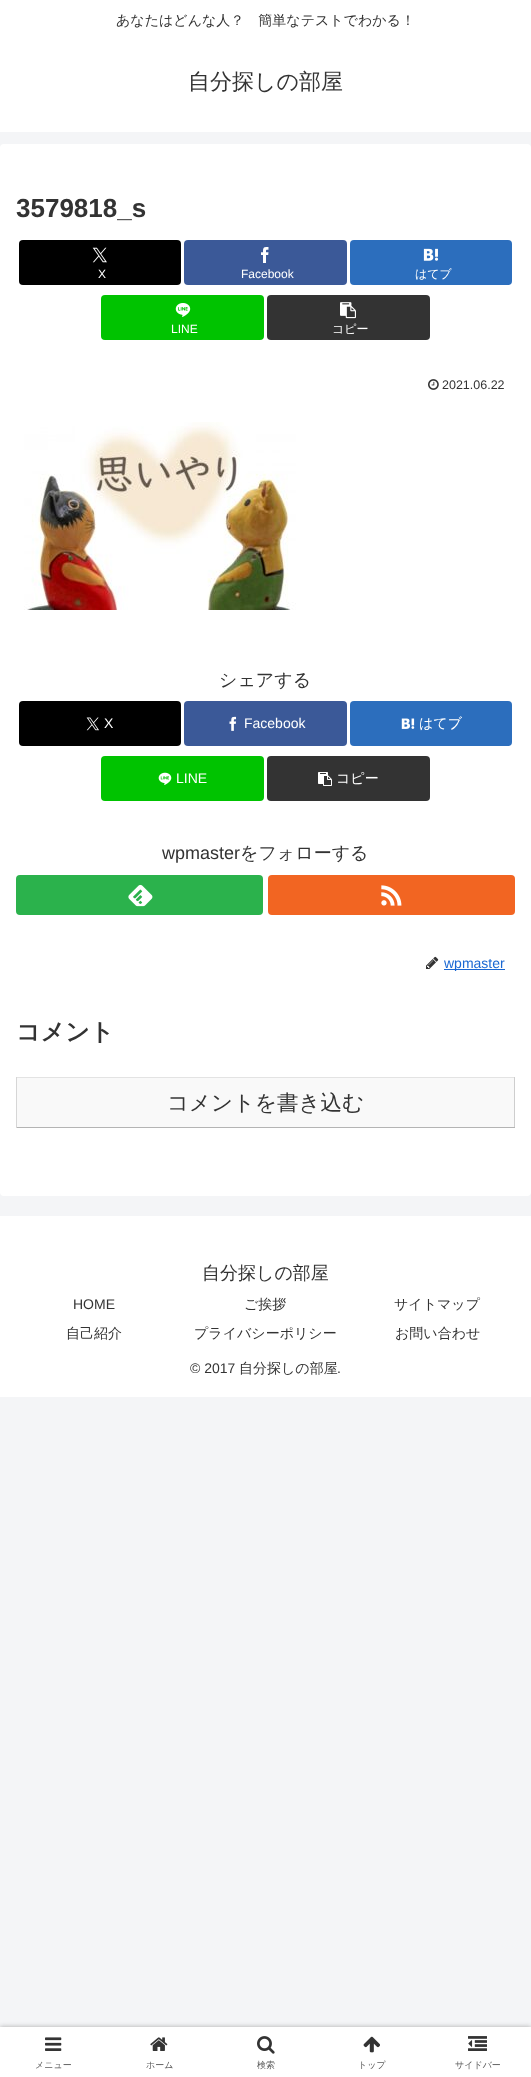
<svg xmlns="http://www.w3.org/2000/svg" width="531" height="2077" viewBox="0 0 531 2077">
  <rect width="100%" height="100%" fill="#f4f5f7"/>
  <path d="M0 0h531v132H0z" fill="#fff"/>
  <rect y="144" width="531" height="1052" rx="4" fill="#fff"/>
  <rect x="19" y="240" width="162" height="45" rx="4" fill="#000"/>
  <image x="92" y="247" width="15" height="16" href="img/1.png"/>
  <rect x="184" y="240" width="163" height="45" rx="4" fill="#3b5998"/>
  <image x="261" y="247" width="8" height="16" href="img/2.png"/>
  <rect x="350" y="240" width="162" height="45" rx="4" fill="#2c6ebd"/>
  <image x="423" y="248" width="16" height="13" href="img/3.png"/>
  <rect x="101" y="295" width="163" height="45" rx="4" fill="#00c300"/>
  <image x="175" y="303" width="16" height="14" href="img/4.png"/>
  <rect x="267" y="295" width="163" height="45" rx="4" fill="#333"/>
  <image x="340" y="302" width="16" height="17" href="img/5.png"/>
  <image x="428" y="379" width="11" height="11" href="img/6.png"/>
  <image x="24" y="422" width="272" height="188" href="img/7.png"/>
  <rect x="19" y="701" width="162" height="45" rx="4" fill="#000"/>
  <image x="86" y="717" width="13" height="14" href="img/8.png"/>
  <rect x="184" y="701" width="163" height="45" rx="4" fill="#3b5998"/>
  <image x="229" y="716" width="8" height="15" href="img/9.png"/>
  <rect x="350" y="701" width="162" height="45" rx="4" fill="#2c6ebd"/>
  <image x="401" y="718" width="14" height="11" href="img/10.png"/>
  <rect x="101" y="756" width="163" height="45" rx="4" fill="#00c300"/>
  <image x="158" y="772" width="14" height="13" href="img/11.png"/>
  <rect x="267" y="756" width="163" height="45" rx="4" fill="#333"/>
  <image x="318" y="772" width="14" height="14" href="img/12.png"/>
  <rect x="16" y="875" width="247" height="40" rx="4" fill="#2bb24c"/>
  <image x="128" y="884" width="25" height="23" href="img/13.png"/>
  <rect x="268" y="875" width="247" height="40" rx="4" fill="#f26522"/>
  <image x="381" y="885" width="21" height="21" href="img/14.png"/>
  <image x="426" y="956" width="13" height="13" href="img/15.png"/>
  <path d="M444 969h61v1H444z" fill="#1967d2"/>
  <path d="M17 1078h497v49H17z" fill="#f9f9f9"/>
  <path d="M16 1077h499v1H16z" fill="#e3e3e3"/>
  <path d="M514 1077h1v51H514z" fill="#cecece"/>
  <path d="M16 1127h499v1H16z" fill="#b4b4b4"/>
  <path d="M16 1077h1v51H16z" fill="#d6d6d6"/>
  <path d="M0 1216h531v181H0z" fill="#fff"/>
  <path d="M0 2027h531v50H0z" fill="#a9a9a9" filter="blur(2.5px)"/>
  <path d="M0 2027h531v50H0z" fill="#fff"/>
  <image x="45" y="2037" width="17" height="14" href="img/16.png"/>
  <image x="150" y="2037" width="18" height="14" href="img/17.png"/>
  <image x="257" y="2036" width="18" height="18" href="img/18.png"/>
  <image x="363" y="2036" width="17" height="17" href="img/19.png"/>
  <image x="468" y="2036" width="19" height="15" href="img/20.png"/>
  <text x="116" y="25" font-family="WenQuanYi Zen Hei" font-size="14" font-weight="500" fill="#333">あなたはどんな人？　簡単なテストでわかる！</text>
  <text x="188" y="89" font-family="WenQuanYi Zen Hei" font-size="22" font-weight="500" fill="#333">自分探しの部屋</text>
  <text x="16" y="217" font-family="Liberation Sans" font-size="26" font-weight="bold" fill="#333">3579818_s</text>
  <g font-family="Liberation Sans" font-size="12" fill="#fff">
    <text x="98" y="278">X</text>
    <text x="241" y="278">Facebook</text>
  </g>
  <text x="415" y="278" font-family="WenQuanYi Zen Hei" font-size="12" font-weight="500" fill="#fff">はてブ</text>
  <text x="171" y="333" font-family="Liberation Sans" font-size="12" fill="#fff">LINE</text>
  <text x="332" y="333" font-family="WenQuanYi Zen Hei" font-size="12" font-weight="500" fill="#fff">コピー</text>
  <text x="442" y="389" font-family="Liberation Sans" font-size="12.5" fill="#333">2021.06.22</text>
  <text x="219" y="686" font-family="WenQuanYi Zen Hei" font-size="18" font-weight="500" fill="#333">シェアする</text>
  <g font-family="Liberation Sans" font-size="14" fill="#fff">
    <text x="104" y="728">X</text>
    <text x="244" y="728">Facebook</text>
  </g>
  <text x="419" y="728" font-family="WenQuanYi Zen Hei" font-size="14" font-weight="500" fill="#fff">はてブ</text>
  <text x="176" y="783" font-family="Liberation Sans" font-size="14" fill="#fff">LINE</text>
  <text x="336" y="783" font-family="WenQuanYi Zen Hei" font-size="14" font-weight="500" fill="#fff">コピー</text>
  <text x="162" y="859" font-family="Liberation Sans" font-size="18" fill="#333">wpmaster</text>
  <text x="240" y="859" font-family="WenQuanYi Zen Hei" font-size="18" font-weight="500" fill="#333">をフォローする</text>
  <text x="444" y="968" font-family="Liberation Sans" font-size="14" fill="#1967d2">wpmaster</text>
  <text x="16" y="1040" font-family="WenQuanYi Zen Hei" font-size="24" font-weight="bold" fill="#333">コメント</text>
  <text x="167" y="1110" font-family="WenQuanYi Zen Hei" font-size="21.5" font-weight="500" fill="#333">コメントを書き込む</text>
  <text x="202" y="1279" font-family="WenQuanYi Zen Hei" font-size="18" font-weight="500" fill="#333">自分探しの部屋</text>
  <text x="73" y="1309" font-family="Liberation Sans" font-size="14" fill="#333">HOME</text>
  <g font-family="WenQuanYi Zen Hei" font-size="14" font-weight="500" fill="#333">
    <text x="244" y="1309">ご挨拶</text>
    <text x="394" y="1309">サイトマップ</text>
    <text x="66" y="1338">自己紹介</text>
    <text x="194" y="1338">プライバシーポリシー</text>
    <text x="395" y="1338">お問い合わせ</text>
  </g>
  <text x="190" y="1373" font-family="Liberation Sans" font-size="14" fill="#333">© 2017</text>
  <text x="239" y="1373" font-family="WenQuanYi Zen Hei" font-size="14" font-weight="500" fill="#333">自分探しの部屋</text>
  <text x="337" y="1373" font-family="Liberation Sans" font-size="14" fill="#333">.</text>
  <g font-family="WenQuanYi Zen Hei" font-size="9" font-weight="500" fill="#5c5c5c">
    <text x="35" y="2068">メニュー</text>
    <text x="146" y="2068">ホーム</text>
    <text x="257" y="2068">検索</text>
    <text x="358" y="2068">トップ</text>
    <text x="455" y="2068">サイドバー</text>
  </g>
</svg>
